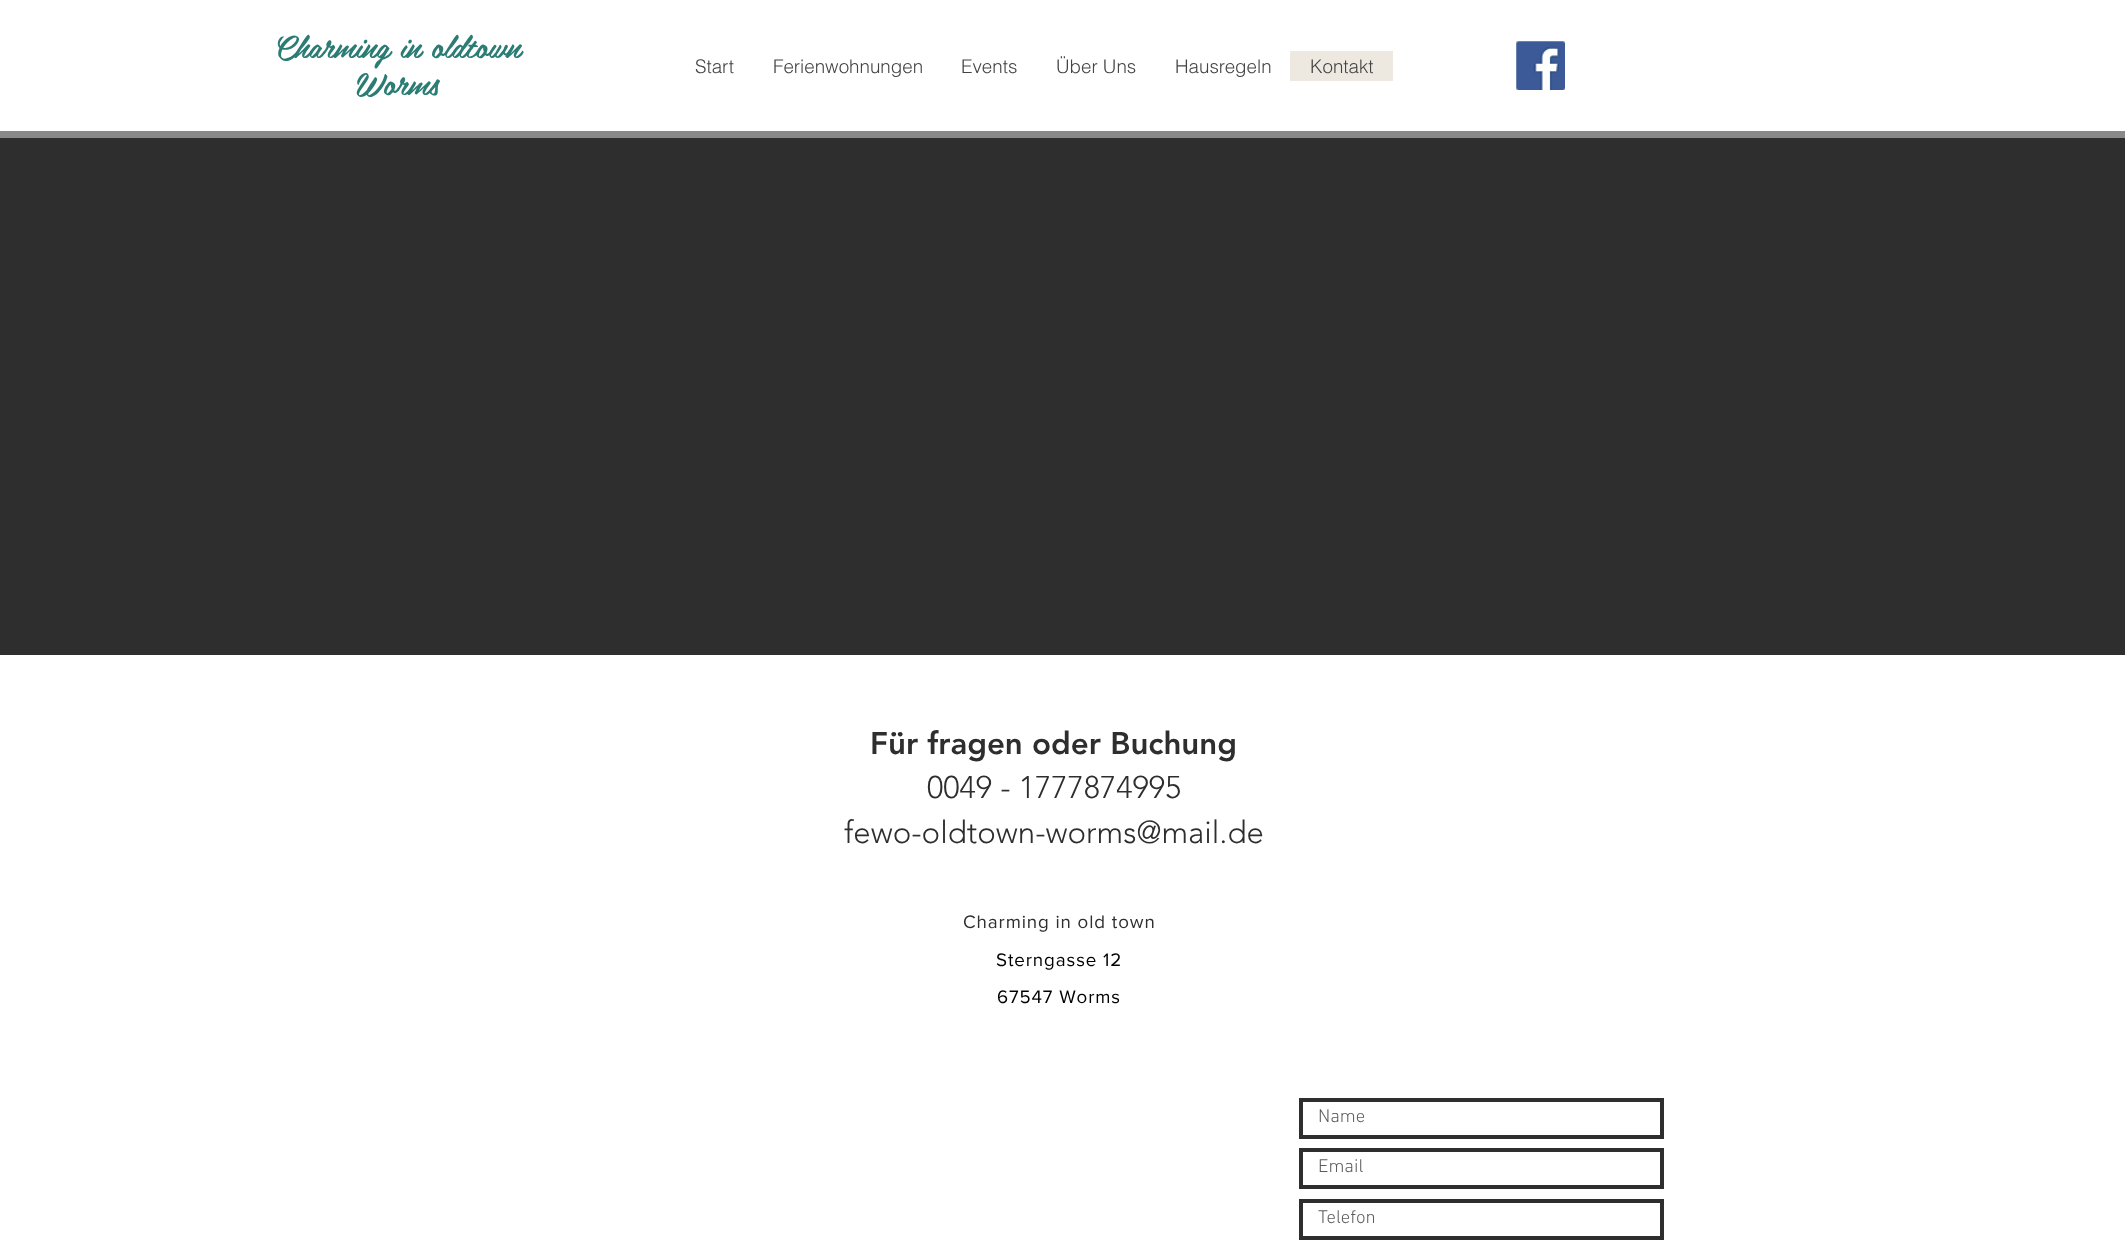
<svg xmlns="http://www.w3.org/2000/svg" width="2125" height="1247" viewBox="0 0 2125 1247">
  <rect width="100%" height="100%" fill="#2e2e2e"/>
  <path d="M0 0h2125v131H0z" fill="#fff"/>
  <path d="M0 131h2125v7H0z" fill="#898989"/>
  <path d="M1290 51h103v30H1290z" fill="#ede9e1"/>
  <image x="1516" y="41" width="49" height="49" href="img/1.png"/>
  <path d="M0 655h2125v592H0z" fill="#fff"/>
  <path d="M1301 1100h361v37H1301z" fill="none" stroke="#2e2e2e" stroke-width="4"/>
  <path d="M1301 1150h361v37H1301z" fill="none" stroke="#2e2e2e" stroke-width="4"/>
  <path d="M1301 1201h361v37H1301z" fill="none" stroke="#2e2e2e" stroke-width="4"/>
  <g font-family="'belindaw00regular'" font-size="31.25" fill="#2b7c74">
    <text x="274" y="58">Charming in oldtown</text>
    <text x="356" y="95">Worms</text>
  </g>
  <g font-family="helvetica" font-size="18.75" font-weight="300" fill="#444">
    <text x="695" y="73">Start</text>
    <text x="773" y="73">Ferienwohnungen</text>
    <text x="961" y="73">Events</text>
    <text x="1056" y="73">Über Uns</text>
    <text x="1175" y="73">Hausregeln</text>
    <text x="1310" y="73">Kontakt</text>
  </g>
  <text x="870" y="754" font-family="'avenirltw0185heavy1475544'" font-size="31.25" font-weight="900" fill="#2e2e2e">Für fragen oder Buchung</text>
  <g font-family="'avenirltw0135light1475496'" font-size="31.25" font-weight="300" fill="#2e2e2e">
    <text x="927" y="798">0049 - 1777874995</text>
    <text x="844" y="843">fewo-oldtown-worms@mail.de</text>
  </g>
  <text x="963" y="928" font-family="'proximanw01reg'" font-size="18.75" letter-spacing="0.9" fill="#2e2e2e">Charming in old town</text>
  <g font-family="'proximanw01reg'" font-size="18.75" letter-spacing="0.9" fill="#000">
    <text x="996" y="966">Sterngasse 12</text>
    <text x="997" y="1003">67547 Worms</text>
  </g>
  <g font-family="'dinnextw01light'" font-size="18.75" font-weight="300" fill="#5c5c5c">
    <text x="1318" y="1122">Name</text>
    <text x="1318" y="1172">Email</text>
    <text x="1318" y="1223">Telefon</text>
  </g>
</svg>
